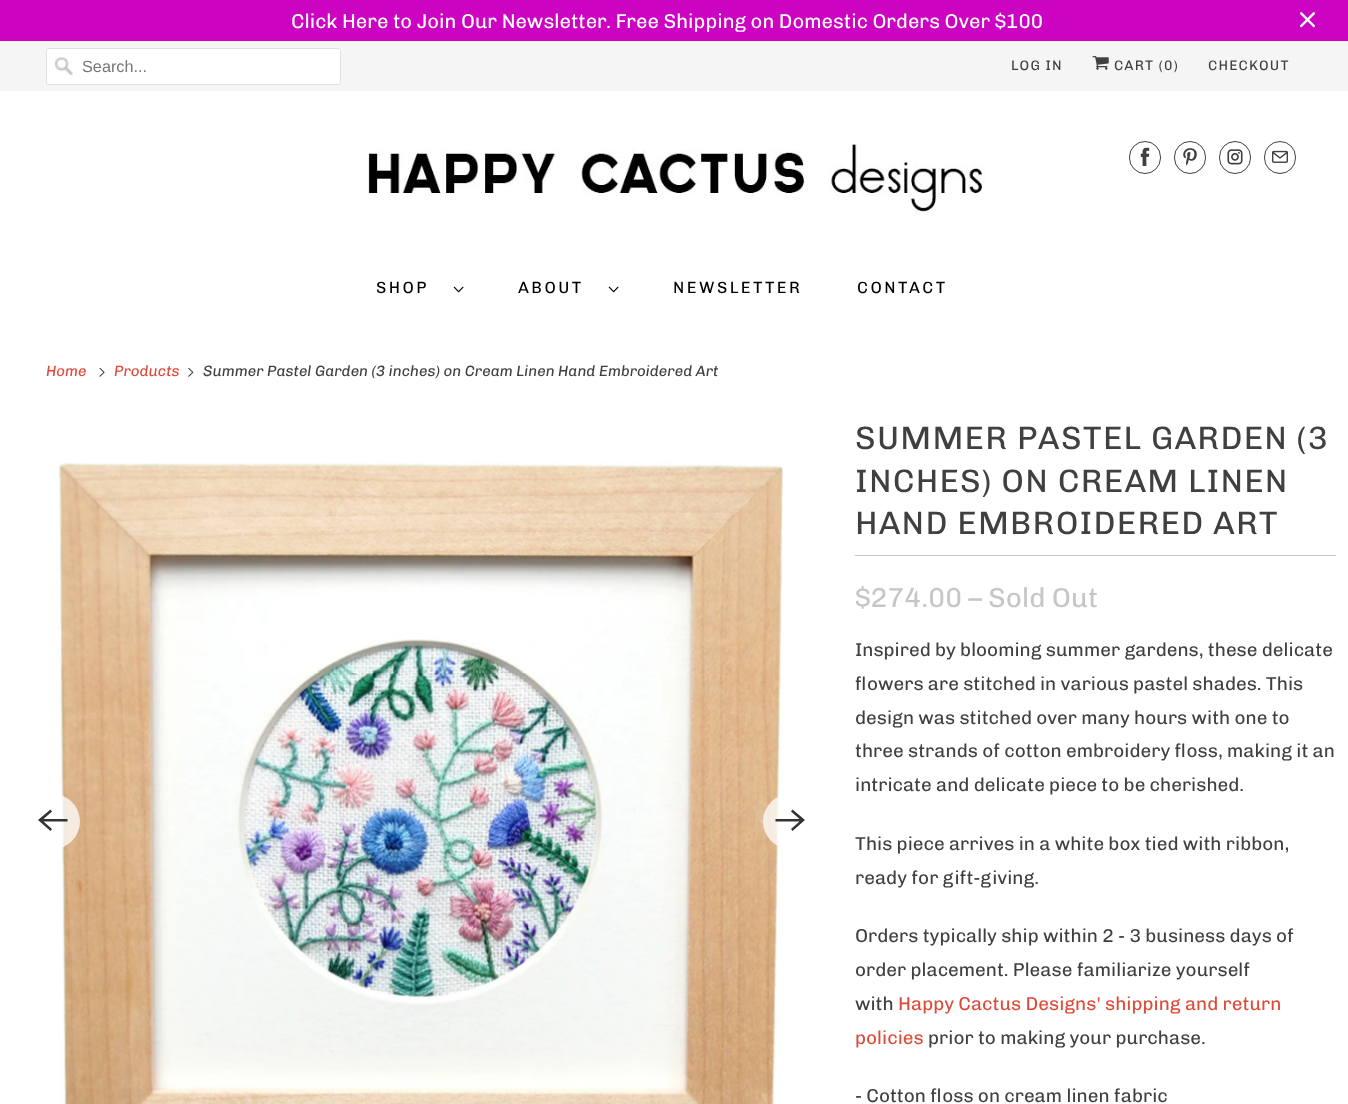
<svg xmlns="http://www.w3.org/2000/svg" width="1348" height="1104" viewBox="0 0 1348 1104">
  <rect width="100%" height="100%" fill="#fff"/>
  <path d="M0 0h1348v41H0z" fill="#cc03c0"/>
  <image x="1300" y="12" width="15" height="16" href="img/1.png"/>
  <path d="M0 41h1348v50H0z" fill="#f5f5f5"/>
  <rect x="46" y="48" width="295" height="37" rx="2.5" fill="#fff"/>
  <image x="55" y="57" width="18" height="18" href="img/2.png"/>
  <rect x="46.5" y="48.5" width="294" height="36" rx="2" fill="none" stroke="#dfdfdf"/>
  <image x="1092" y="56" width="17" height="14" href="img/3.png"/>
  <image x="368" y="143" width="617" height="71" href="img/4.png"/>
  <rect x="1129.5" y="141.5" width="31" height="32" rx="15.5" fill="none" stroke="#404040"/>
  <image x="1140" y="147" width="10" height="19" href="img/5.png"/>
  <rect x="1174.5" y="141.5" width="31" height="32" rx="15.5" fill="none" stroke="#404040"/>
  <image x="1183" y="148" width="14" height="18" href="img/6.png"/>
  <rect x="1219.5" y="141.5" width="31" height="32" rx="15.5" fill="none" stroke="#404040"/>
  <image x="1227" y="149" width="16" height="16" href="img/7.png"/>
  <rect x="1264.5" y="141.5" width="31" height="32" rx="15.5" fill="none" stroke="#404040"/>
  <image x="1272" y="150" width="16" height="13" href="img/8.png"/>
  <image x="453" y="286" width="11" height="7" href="img/9.png"/>
  <image x="608" y="286" width="11" height="7" href="img/9.png"/>
  <image x="99" y="367" width="6" height="10" href="img/10.png"/>
  <image x="188" y="367" width="6" height="10" href="img/11.png"/>
  <image x="58" y="462" width="726" height="642" href="img/12.png"/>
  <circle cx="52.5" cy="821.5" r="27.5" fill="#ffffffbf"/>
  <path d="M67.5 819H43.5L52 811.5L50.5 809.5L38 820L50.5 831L52 829L43.5 821.5H67.5Z" fill="#333"/>
  <circle cx="790.5" cy="821.5" r="27.5" fill="#ffffffbf"/>
  <path d="M775.5 821.5H799.5L791 829L792.5 831L805 820L792.5 809.5L791 811.5L799.5 819H775.5Z" fill="#333"/>
  <path d="M855 555h481v1H855z" fill="#cec6bf"/>
  <text x="291" y="28" font-family="Chivo" font-size="20" fill="#fff">Click Here to Join Our Newsletter. Free Shipping on Domestic Orders Over $100</text>
  <text x="82" y="72" font-family="Liberation Sans" font-size="16.25" fill="#757575">Search...</text>
  <g font-family="Chivo" font-size="13.75" letter-spacing="1.25" fill="#404040">
    <text x="1011" y="70">LOG IN</text>
    <text x="1114" y="70">CART (0)</text>
    <text x="1208" y="70">CHECKOUT</text>
  </g>
  <g font-family="Chivo" font-size="16.25" letter-spacing="2.5" fill="#000">
    <text x="376" y="293">SHOP</text>
    <text x="518" y="293">ABOUT</text>
    <text x="673" y="293">NEWSLETTER</text>
    <text x="857" y="293">CONTACT</text>
  </g>
  <g font-family="Chivo" font-size="15" font-style="italic" fill="#dd4b39">
    <text x="46" y="376">Home</text>
    <text x="114" y="376">Products</text>
  </g>
  <text x="203" y="376" font-family="Chivo" font-size="15" font-style="italic" fill="#404040">Summer Pastel Garden (3 inches) on Cream Linen Hand Embroidered Art</text>
  <g font-family="Chivo" font-size="32.5" letter-spacing="1.25" fill="#404040">
    <text x="855" y="449">SUMMER PASTEL GARDEN (3</text>
    <text x="855" y="492">INCHES) ON CREAM LINEN</text>
    <text x="855" y="534">HAND EMBROIDERED ART</text>
  </g>
  <text x="855" y="607" font-family="Chivo" font-size="27.5" fill="#c6c6c6">$274.00 – Sold Out</text>
  <g font-family="Chivo" font-size="18.75" fill="#404040">
    <text x="855" y="656">Inspired by blooming summer gardens, these delicate</text>
    <text x="855" y="690">flowers are stitched in various pastel shades. This</text>
    <text x="855" y="724">design was stitched over many hours with one to</text>
    <text x="855" y="757">three strands of cotton embroidery floss, making it an</text>
    <text x="855" y="791">intricate and delicate piece to be cherished.</text>
    <text x="855" y="850">This piece arrives in a white box tied with ribbon,</text>
    <text x="855" y="884">ready for gift-giving.</text>
    <text x="855" y="942">Orders typically ship within 2 - 3 business days of</text>
    <text x="855" y="976">order placement. Please familiarize yourself</text>
    <text x="855" y="1010">with</text>
  </g>
  <g font-family="Chivo" font-size="18.75" fill="#dd4b39">
    <text x="898" y="1010">Happy Cactus Designs' shipping and return</text>
    <text x="855" y="1044">policies</text>
  </g>
  <g font-family="Chivo" font-size="18.75" fill="#404040">
    <text x="928" y="1044">prior to making your purchase.</text>
    <text x="855" y="1102">- Cotton floss on cream linen fabric</text>
  </g>
</svg>
